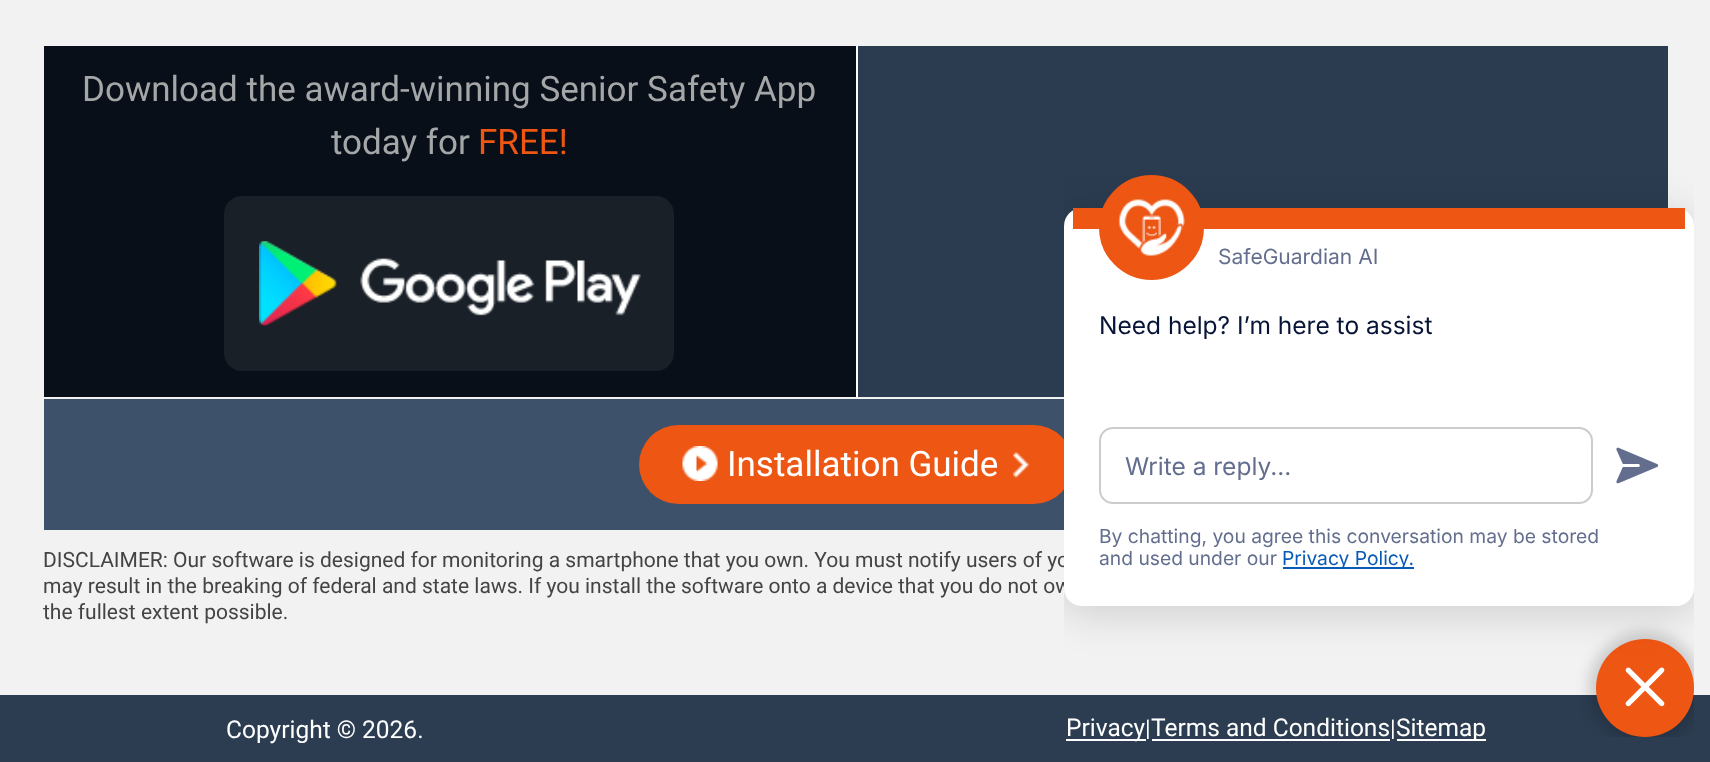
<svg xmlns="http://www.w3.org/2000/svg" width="1710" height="762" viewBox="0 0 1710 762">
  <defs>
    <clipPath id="clip1"><path d="M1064 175h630v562H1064z"/></clipPath>
  </defs>
  <rect width="100%" height="100%" fill="#f2f2f2"/>
  <path d="M44 46h812v351H44z" fill="#080f18"/>
  <rect x="224" y="196" width="450" height="175" rx="18" fill="#192028"/>
  <image x="259" y="241" width="382" height="85" href="img/1.png"/>
  <path d="M858 46h810v351H858z" fill="#2b3c50"/>
  <path d="M856 46h2v351H856z" fill="#fff"/>
  <path d="M44 399h1020v131H44z" fill="#3d526a"/>
  <rect x="639" y="425" width="434" height="79" rx="39.5" fill="#ee5613"/>
  <image x="682" y="446" width="36" height="35" href="img/2.png"/>
  <image x="1013" y="451" width="16" height="27" href="img/3.png"/>
  <path d="M0 695h1710v67H0z" fill="#2c3d51"/>
  <path d="M1066 739h80v2H1066z" fill="#fff"/>
  <path d="M1152 739h238v2H1152z" fill="#fff"/>
  <path d="M1397 739h89v2H1397z" fill="#fff"/>
  <g clip-path="url(#clip1)">
    <rect x="1589" y="632" width="112" height="112" rx="56" fill="#00000029" filter="blur(7px)"/>
  </g>
  <circle cx="1645" cy="688" r="49" fill="#ee5613"/>
  <image x="1625" y="667" width="40" height="40" href="img/6.png"/>
  <g clip-path="url(#clip1)">
    <rect x="1064" y="215" width="630" height="398" rx="18" fill="#00000026" filter="blur(21px)"/>
  </g>
  <g font-family="Roboto" font-size="35" fill="#a5a6a8">
    <text x="82" y="101">Download the award-winning Senior Safety App</text>
    <text x="331" y="154">today for</text>
  </g>
  <text x="478" y="154" font-family="Roboto" font-size="35" fill="#ee5614">FREE!</text>
  <text x="727" y="476" font-family="Roboto" font-size="35" fill="#fff">Installation Guide</text>
  <g font-family="Roboto" font-size="21" fill="#444">
    <text x="43" y="567">DISCLAIMER: Our software is designed for monitoring a smartphone that you own. You must notify users of yo</text>
    <text x="43" y="593">may result in the breaking of federal and state laws. If you install the software onto a device that you do not ow</text>
    <text x="43" y="619">the fullest extent possible.</text>
  </g>
  <g font-family="Roboto" font-size="24.5" fill="#fff">
    <text x="226" y="738">Copyright © 2026.</text>
    <text x="1066" y="736">Privacy</text>
  </g>
  <text x="1145" y="736" font-family="Roboto" font-size="23" fill="#fff">|</text>
  <text x="1151" y="736" font-family="Roboto" font-size="24.5" fill="#fff">Terms and Conditions</text>
  <text x="1390" y="736" font-family="Roboto" font-size="23" fill="#fff">|</text>
  <text x="1396" y="736" font-family="Roboto" font-size="24.5" fill="#fff">Sitemap</text>
  <rect x="1064" y="208" width="630" height="398" rx="18" fill="#fff"/>
  <path d="M1073 208h612v21H1073z" fill="#ee5613"/>
  <circle cx="1151.5" cy="227.5" r="51.5" fill="#ee5613" stroke="#ee5613" stroke-width="2"/>
  <image x="1118" y="199" width="67" height="57" href="img/4.png"/>
  <text x="1218" y="264" font-family="Inter" font-size="21" fill="#636e8e">SafeGuardian AI</text>
  <text x="1099" y="334" font-family="Inter" font-size="24.5" fill="#071437">Need help? I’m here to assist</text>
  <rect x="1100" y="428" width="492" height="75" rx="13" fill="none" stroke="#ccc" stroke-width="2"/>
  <text x="1125" y="475" font-family="Inter" font-size="24.5" fill="#636e8e">Write a reply...</text>
  <image x="1616" y="447" width="43" height="37" href="img/5.png"/>
  <g font-family="Inter" font-size="19.25" fill="#636e8e">
    <text x="1099" y="543">By chatting, you agree this conversation may be stored</text>
    <text x="1099" y="565">and used under our</text>
  </g>
  <path d="M1283 567h131v2H1283z" fill="#0959b7"/>
  <text x="1282" y="565" font-family="Inter" font-size="19.25" fill="#0959b7">Privacy Policy.</text>
</svg>
